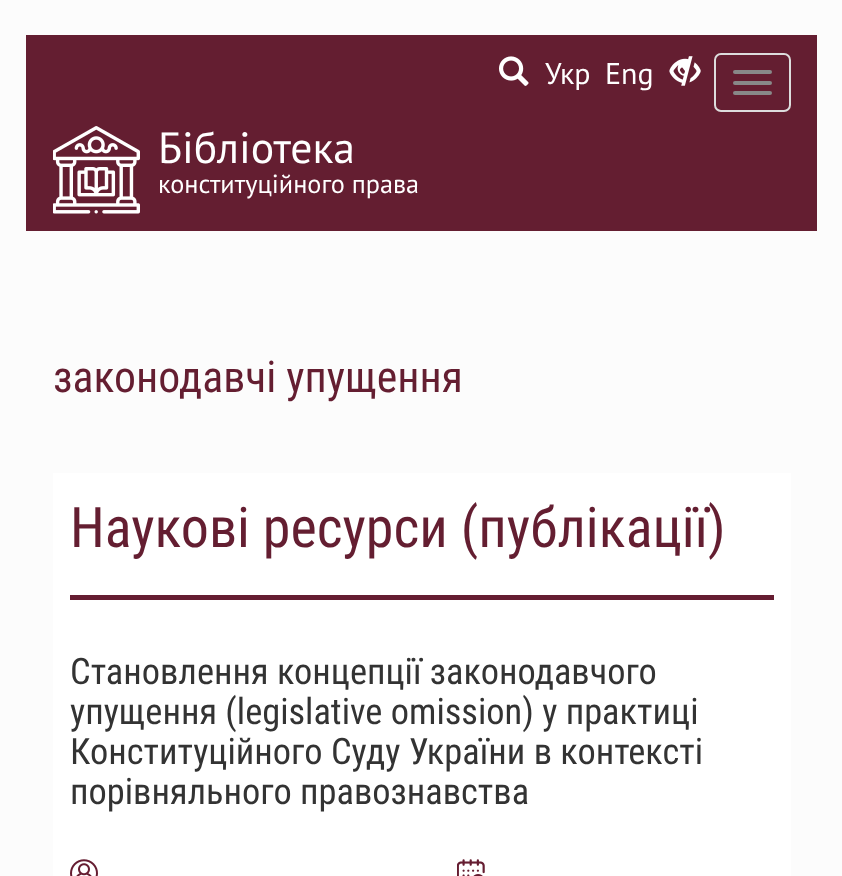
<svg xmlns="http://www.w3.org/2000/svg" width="842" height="876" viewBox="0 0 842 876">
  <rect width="100%" height="100%" fill="#fcfcfc"/>
  <path d="M26 35h791v196H26z" fill="#641e31"/>
  <image x="499" y="56" width="30" height="30" href="img/1.png"/>
  <image x="669" y="56" width="32" height="30" href="img/2.png"/>
  <rect x="715" y="54" width="75" height="57" rx="6" fill="none" stroke="#ddd" stroke-width="2"/>
  <rect x="733" y="70" width="39" height="4" rx="2" fill="#888"/>
  <rect x="733" y="81" width="39" height="4" rx="2" fill="#888"/>
  <rect x="733" y="91" width="39" height="4" rx="2" fill="#888"/>
  <image x="53" y="126" width="87" height="88" href="img/3.png"/>
  <path d="M53 473h738v403H53z" fill="#fff"/>
  <path d="M70 595h704v5H70z" fill="#651d31"/>
  <image x="70" y="859" width="28" height="17" href="img/4.png"/>
  <image x="457" y="859" width="28" height="17" href="img/5.png"/>
  <g font-family="PT Sans" font-size="30" fill="#fff">
    <text x="545" y="84">Укр</text>
    <text x="605" y="84">Eng</text>
  </g>
  <text x="158" y="163" font-family="PT Sans" font-size="43.75" fill="#fff">Бібліотека</text>
  <text x="158" y="193" font-family="PT Sans" font-size="26.25" fill="#fff">конституційного права</text>
  <text x="53" y="392" font-family="Roboto Condensed" font-size="43.75" fill="#641e31">законодавчі упущення</text>
  <text x="70" y="547" font-family="Roboto Condensed" font-size="56" fill="#641e31">Наукові ресурси (публікації)</text>
  <g font-family="Roboto Condensed" font-size="36.4" fill="#333">
    <text x="70" y="684">Становлення концепції законодавчого</text>
    <text x="70" y="724">упущення (legislative omission) у практиці</text>
    <text x="70" y="764">Конституційного Суду України в контексті</text>
    <text x="70" y="804">порівняльного правознавства</text>
  </g>
</svg>
